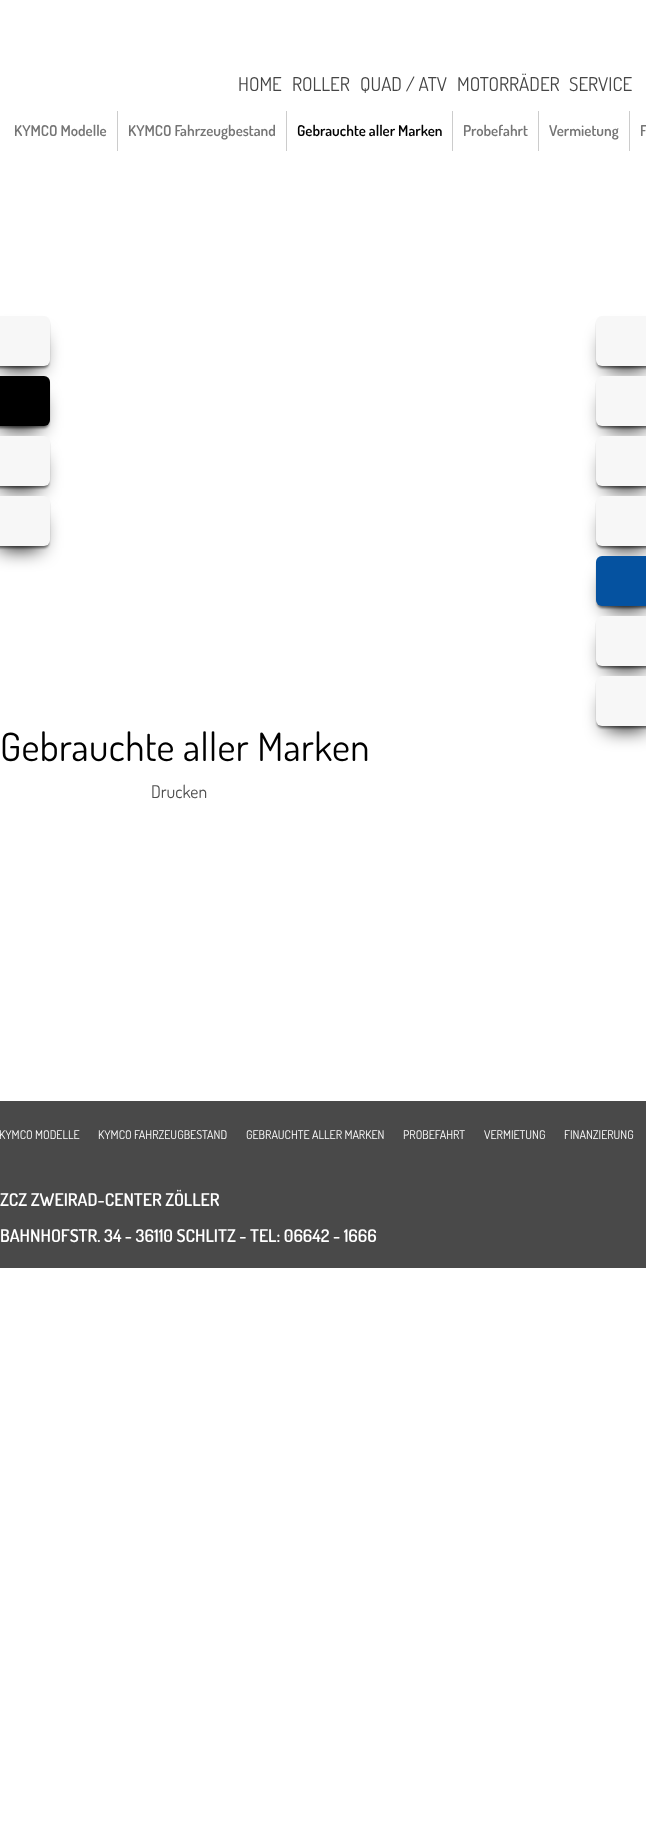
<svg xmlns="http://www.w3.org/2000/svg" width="646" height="1838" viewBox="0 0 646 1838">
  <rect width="100%" height="100%" fill="#fff"/>
  <path d="M117 111h1v40H117z" fill="#ccc"/>
  <path d="M286 111h1v40H286z" fill="#ccc"/>
  <path d="M452 111h1v40H452z" fill="#ccc"/>
  <path d="M538 111h1v40H538z" fill="#ccc"/>
  <path d="M629 111h1v40H629z" fill="#ccc"/>
  <path d="M0 1101h646v167H0z" fill="#494949"/>
  <path d="M0 338h40v30H0z" fill="#000" filter="blur(10px)"/>
  <rect x="-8" y="320" width="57" height="48" rx="5" fill="#00000080" filter="blur(1px)"/>
  <rect x="-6" y="316" width="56" height="50" rx="6" fill="#f7f7f7"/>
  <path d="M0 398h40v30H0z" fill="#000" filter="blur(10px)"/>
  <rect x="-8" y="380" width="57" height="48" rx="5" fill="#00000080" filter="blur(1px)"/>
  <rect x="-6" y="376" width="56" height="50" rx="6" fill="#000"/>
  <path d="M0 458h40v30H0z" fill="#000" filter="blur(10px)"/>
  <rect x="-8" y="440" width="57" height="48" rx="5" fill="#00000080" filter="blur(1px)"/>
  <rect x="-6" y="436" width="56" height="50" rx="6" fill="#f7f7f7"/>
  <path d="M0 518h40v30H0z" fill="#000" filter="blur(10px)"/>
  <rect x="-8" y="500" width="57" height="48" rx="5" fill="#00000080" filter="blur(1px)"/>
  <rect x="-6" y="496" width="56" height="50" rx="6" fill="#f7f7f7"/>
  <path d="M606 338h40v30H606z" fill="#000" filter="blur(10px)"/>
  <rect x="597" y="320" width="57" height="48" rx="5" fill="#00000080" filter="blur(1px)"/>
  <rect x="596" y="316" width="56" height="50" rx="6" fill="#f7f7f7"/>
  <path d="M606 398h40v30H606z" fill="#000" filter="blur(10px)"/>
  <rect x="597" y="380" width="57" height="48" rx="5" fill="#00000080" filter="blur(1px)"/>
  <rect x="596" y="376" width="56" height="50" rx="6" fill="#f7f7f7"/>
  <path d="M606 458h40v30H606z" fill="#000" filter="blur(10px)"/>
  <rect x="597" y="440" width="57" height="48" rx="5" fill="#00000080" filter="blur(1px)"/>
  <rect x="596" y="436" width="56" height="50" rx="6" fill="#f7f7f7"/>
  <path d="M606 518h40v30H606z" fill="#000" filter="blur(10px)"/>
  <rect x="597" y="500" width="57" height="48" rx="5" fill="#00000080" filter="blur(1px)"/>
  <rect x="596" y="496" width="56" height="50" rx="6" fill="#f7f7f7"/>
  <path d="M606 578h40v30H606z" fill="#000" filter="blur(10px)"/>
  <rect x="597" y="560" width="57" height="48" rx="5" fill="#00000080" filter="blur(1px)"/>
  <rect x="596" y="556" width="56" height="50" rx="6" fill="#0552a0"/>
  <path d="M606 638h40v30H606z" fill="#000" filter="blur(10px)"/>
  <rect x="597" y="620" width="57" height="48" rx="5" fill="#00000080" filter="blur(1px)"/>
  <rect x="596" y="616" width="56" height="50" rx="6" fill="#f7f7f7"/>
  <path d="M606 698h40v30H606z" fill="#000" filter="blur(10px)"/>
  <rect x="597" y="680" width="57" height="48" rx="5" fill="#00000080" filter="blur(1px)"/>
  <rect x="596" y="676" width="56" height="50" rx="6" fill="#f7f7f7"/>
  <g font-family="Dosis" font-size="19" fill="#454545">
    <text x="238" y="91">HOME</text>
    <text x="292" y="91">ROLLER</text>
    <text x="360" y="91">QUAD / ATV</text>
    <text x="457" y="91">MOTORRÄDER</text>
    <text x="569" y="91">SERVICE</text>
  </g>
  <g font-family="Dosis" font-size="15" font-weight="600" fill="#757575">
    <text x="14" y="136">KYMCO Modelle</text>
    <text x="128" y="136">KYMCO Fahrzeugbestand</text>
  </g>
  <text x="297" y="136" font-family="Dosis" font-size="15" font-weight="600" fill="#000">Gebrauchte aller Marken</text>
  <g font-family="Dosis" font-size="15" font-weight="600" fill="#757575">
    <text x="463" y="136">Probefahrt</text>
    <text x="549" y="136">Vermietung</text>
    <text x="640" y="136">F</text>
  </g>
  <text x="0" y="761" font-family="Dosis" font-size="39" letter-spacing="0.4" fill="#000">Gebrauchte aller Marken</text>
  <text x="151" y="798" font-family="Dosis" font-size="17.6" fill="#4e4e4e">Drucken</text>
  <g font-family="Dosis" font-size="12" fill="#fff">
    <text x="-1" y="1139">KYMCO MODELLE</text>
    <text x="98" y="1139">KYMCO FAHRZEUGBESTAND</text>
    <text x="246" y="1139">GEBRAUCHTE ALLER MARKEN</text>
    <text x="403" y="1139">PROBEFAHRT</text>
    <text x="484" y="1139">VERMIETUNG</text>
    <text x="564" y="1139">FINANZIERUNG</text>
  </g>
  <g font-family="Dosis" font-size="17.6" font-weight="600" fill="#fff">
    <text x="0" y="1206">ZCZ ZWEIRAD-CENTER ZÖLLER</text>
    <text x="0" y="1242">BAHNHOFSTR. 34 - 36110 SCHLITZ - TEL: 06642 - 1666</text>
  </g>
</svg>
